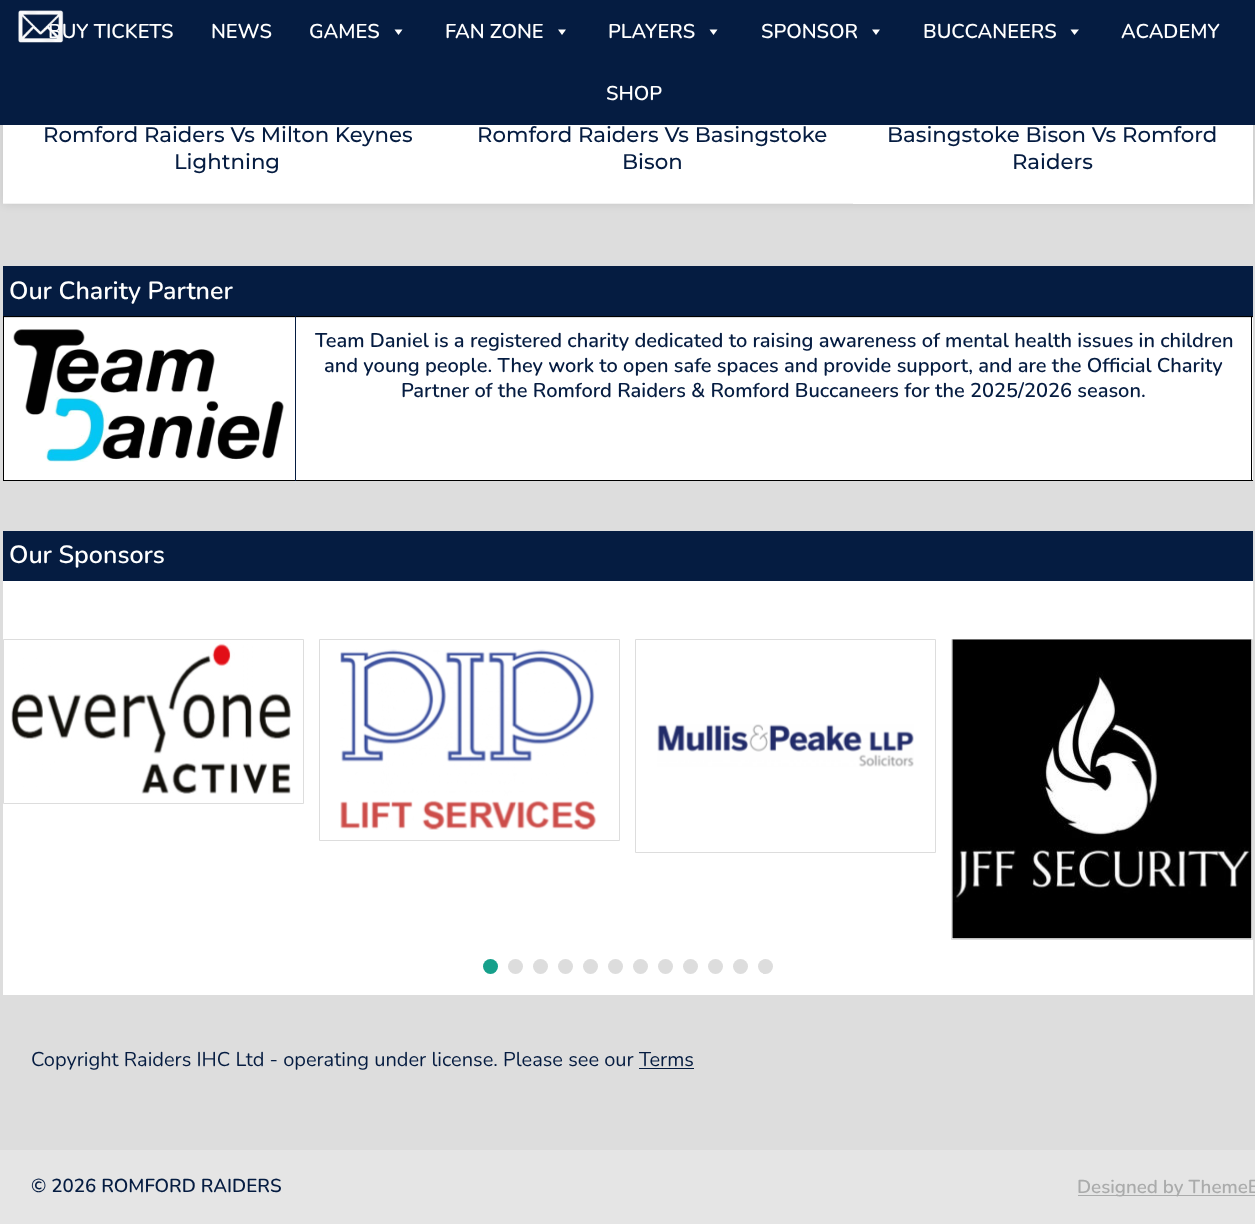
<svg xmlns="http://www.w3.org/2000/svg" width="1255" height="1224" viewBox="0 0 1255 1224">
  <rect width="100%" height="100%" fill="#ddd"/>
  <path d="M3 -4h1250v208H3z" fill="#0000001a" filter="blur(5px)"/>
  <path d="M0 0h1255v125H0z" fill="#051c41"/>
  <path d="M402.5 29.5L398.5 35L394.5 29.5Z" fill="#fff"/>
  <path d="M566 29.5L562 35L558 29.5Z" fill="#fff"/>
  <path d="M717.5 29.5L713.5 35L709.5 29.5Z" fill="#fff"/>
  <path d="M880 29.5L876 35L872 29.5Z" fill="#fff"/>
  <path d="M1079 29.5L1074.5 35L1070.5 29.5Z" fill="#fff"/>
  <path d="M3 125h1250v79H3z" fill="#fff"/>
  <path d="M3 203h850v1H3z" fill="#f2f2f2"/>
  <path d="M3 266h1250v50H3z" fill="#051c41"/>
  <path d="M3 316h1250v1H3z" fill="#000"/>
  <path d="M296 318h957v162H296z" fill="#fff"/>
  <path d="M1251 316h1v165H1251z" fill="#000"/>
  <path d="M3 480h1250v1H3z" fill="#000"/>
  <path d="M3 316h1v165H3z" fill="#000"/>
  <path d="M4 318h291v162H4z" fill="#fff"/>
  <image x="13" y="329" width="271" height="133" href="img/2.png"/>
  <path d="M295 316h1v165H295z" fill="#051c41"/>
  <path d="M3 531h1250v50H3z" fill="#051c41"/>
  <path d="M3 581h1250v414H3z" fill="#fff"/>
  <path d="M3.5 639.5h300v164H3.5z" fill="none" stroke="#ddd"/>
  <image x="11" y="643" width="280" height="151" href="img/3.png"/>
  <path d="M319.5 639.5h300v201H319.5z" fill="none" stroke="#ddd"/>
  <image x="340" y="649" width="257" height="181" href="img/4.png"/>
  <path d="M635.5 639.5h300v213H635.5z" fill="none" stroke="#ddd"/>
  <image x="657" y="724" width="257" height="43" href="img/5.png"/>
  <path d="M951.5 639.5h301v300H951.5z" fill="none" stroke="#ddd"/>
  <image x="952" y="639" width="300" height="300" href="img/6.png"/>
  <circle cx="490.5" cy="966.5" r="7.5" fill="#16a08b"/>
  <circle cx="515.5" cy="966.5" r="7.5" fill="#ddd"/>
  <circle cx="540.5" cy="966.5" r="7.5" fill="#ddd"/>
  <circle cx="565.5" cy="966.5" r="7.5" fill="#ddd"/>
  <circle cx="590.5" cy="966.5" r="7.5" fill="#ddd"/>
  <circle cx="615.5" cy="966.5" r="7.5" fill="#ddd"/>
  <circle cx="640.5" cy="966.5" r="7.5" fill="#ddd"/>
  <circle cx="665.5" cy="966.5" r="7.5" fill="#ddd"/>
  <circle cx="690.5" cy="966.5" r="7.5" fill="#ddd"/>
  <circle cx="715.5" cy="966.5" r="7.5" fill="#ddd"/>
  <circle cx="740.5" cy="966.5" r="7.5" fill="#ddd"/>
  <circle cx="765.5" cy="966.5" r="7.5" fill="#ddd"/>
  <path d="M639 1068h55v1H639z" fill="#051c41"/>
  <path d="M0 1150h1255v74H0z" fill="#e5e5e5"/>
  <path d="M1078 1195h177v1H1078z" fill="#aaabab"/>
  <text x="48" y="38" font-family="Nunito" font-size="20" font-weight="600" fill="#fff">BUY TICKETS</text>
  <image x="18" y="10" width="46" height="33" href="img/1.png"/>
  <g font-family="Nunito" font-size="20" font-weight="600" fill="#fff">
    <text x="211" y="38">NEWS</text>
    <text x="309" y="38">GAMES</text>
    <text x="445" y="38">FAN ZONE</text>
    <text x="608" y="38">PLAYERS</text>
    <text x="761" y="38">SPONSOR</text>
    <text x="923" y="38">BUCCANEERS</text>
    <text x="1121" y="38">ACADEMY</text>
    <text x="606" y="100">SHOP</text>
  </g>
  <g font-family="Montserrat" font-size="21.25" font-weight="100" fill="#051c41">
    <text x="43" y="142">Romford Raiders Vs Milton Keynes</text>
    <text x="174" y="169">Lightning</text>
    <text x="477" y="142">Romford Raiders Vs Basingstoke</text>
    <text x="622" y="169">Bison</text>
    <text x="887" y="142">Basingstoke Bison Vs Romford</text>
    <text x="1012" y="169">Raiders</text>
  </g>
  <text x="9" y="299" font-family="Nunito" font-size="25" font-weight="600" fill="#fff">Our Charity Partner</text>
  <g font-family="Nunito" font-size="20" font-weight="600" fill="#051c41">
    <text x="315" y="347">Team Daniel is a registered charity dedicated to raising awareness of mental health issues in children</text>
    <text x="324" y="372">and young people. They work to open safe spaces and provide support, and are the Official Charity</text>
    <text x="401" y="397">Partner of the Romford Raiders &amp; Romford Buccaneers for the 2025/2026 season.</text>
  </g>
  <text x="9" y="563" font-family="Nunito" font-size="25" font-weight="600" fill="#fff">Our Sponsors</text>
  <text x="31" y="1066" font-family="Nunito" font-size="20" fill="#051c41">Copyright Raiders IHC Ltd - operating under license. Please see our Terms</text>
  <text x="31" y="1192" font-family="Nunito" font-size="18.75" font-weight="600" fill="#051c41">© 2026 ROMFORD RAIDERS</text>
  <text x="1077" y="1193" font-family="Nunito" font-size="18.75" font-weight="600" fill="#aaabab">Designed by ThemeB</text>
</svg>
